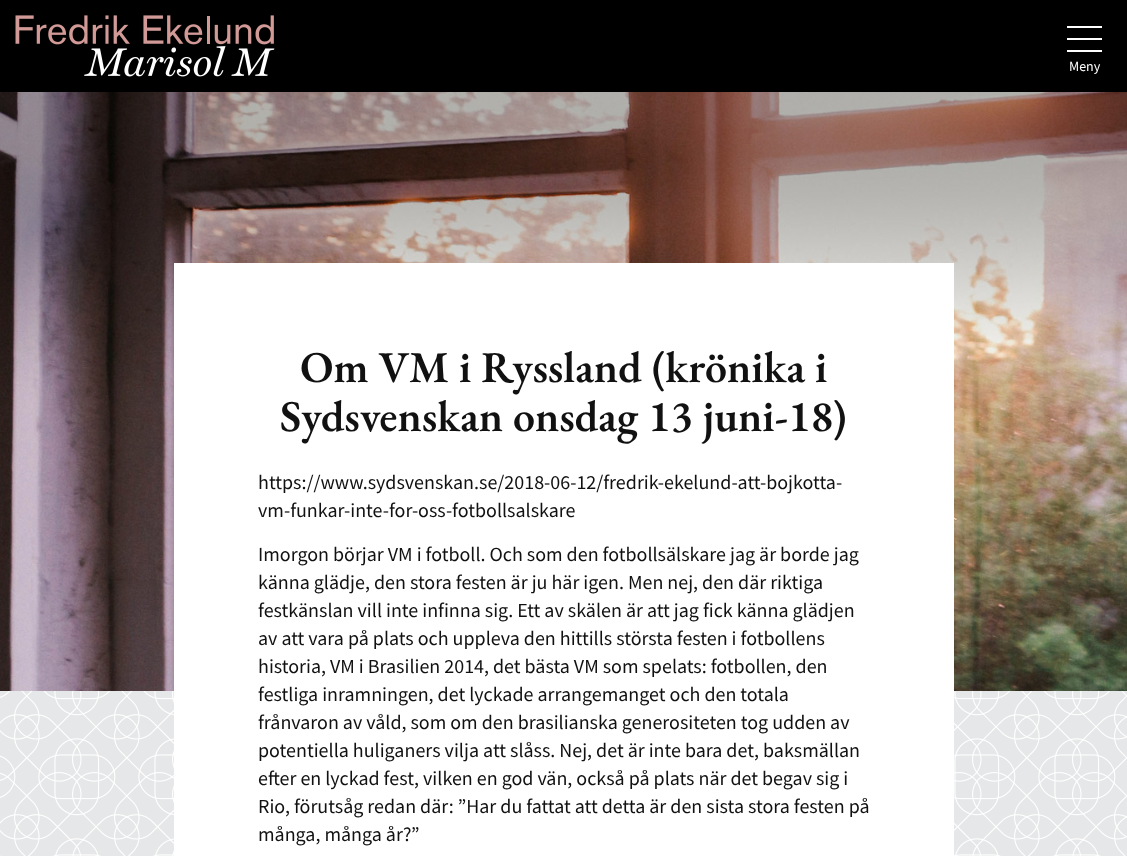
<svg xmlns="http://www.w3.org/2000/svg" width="1127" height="856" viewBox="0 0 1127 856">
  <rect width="100%" height="100%" fill="#fff"/>
  <image x="0" y="691" width="1127" height="165" href="img/1.png"/>
  <path d="M0 0h1127v92H0z" fill="#000"/>
  <image x="15" y="15" width="260" height="62" href="img/2.png"/>
  <path d="M1067 38h35v2H1067z" fill="#fff"/>
  <path d="M1067 26h35v2H1067z" fill="#fff"/>
  <path d="M1067 50h35v2H1067z" fill="#fff"/>
  <image x="0" y="92" width="1127" height="599" href="img/3.png"/>
  <path d="M174 263h780v593H174z" fill="#fff"/>
  <text x="1069" y="71" font-family="Source Sans Pro" font-size="14" fill="#fff">Meny</text>
  <g font-family="EB Garamond" font-size="44" font-weight="600" fill="#111">
    <text x="300" y="382">Om VM i Ryssland (krönika i</text>
    <text x="280" y="431">Sydsvenskan onsdag 13 juni-18)</text>
  </g>
  <g font-family="Source Sans Pro" font-size="20" fill="#111">
    <text x="258" y="489">https://www.sydsvenskan.se/2018-06-12/fredrik-ekelund-att-bojkotta-</text>
    <text x="258" y="517">vm-funkar-inte-for-oss-fotbollsalskare</text>
    <text x="258" y="561">Imorgon börjar VM i fotboll. Och som den fotbollsälskare jag är borde jag</text>
    <text x="258" y="589">känna glädje, den stora festen är ju här igen. Men nej, den där riktiga</text>
    <text x="258" y="617">festkänslan vill inte infinna sig. Ett av skälen är att jag fick känna glädjen</text>
    <text x="258" y="645">av att vara på plats och uppleva den hittills största festen i fotbollens</text>
    <text x="258" y="673">historia, VM i Brasilien 2014, det bästa VM som spelats: fotbollen, den</text>
    <text x="258" y="701">festliga inramningen, det lyckade arrangemanget och den totala</text>
    <text x="258" y="729">frånvaron av våld, som om den brasilianska generositeten tog udden av</text>
    <text x="258" y="757">potentiella huliganers vilja att slåss. Nej, det är inte bara det, baksmällan</text>
    <text x="258" y="785">efter en lyckad fest, vilken en god vän, också på plats när det begav sig i</text>
    <text x="258" y="813">Rio, förutsåg redan där: ”Har du fattat att detta är den sista stora festen på</text>
    <text x="258" y="841">många, många år?”</text>
  </g>
</svg>
